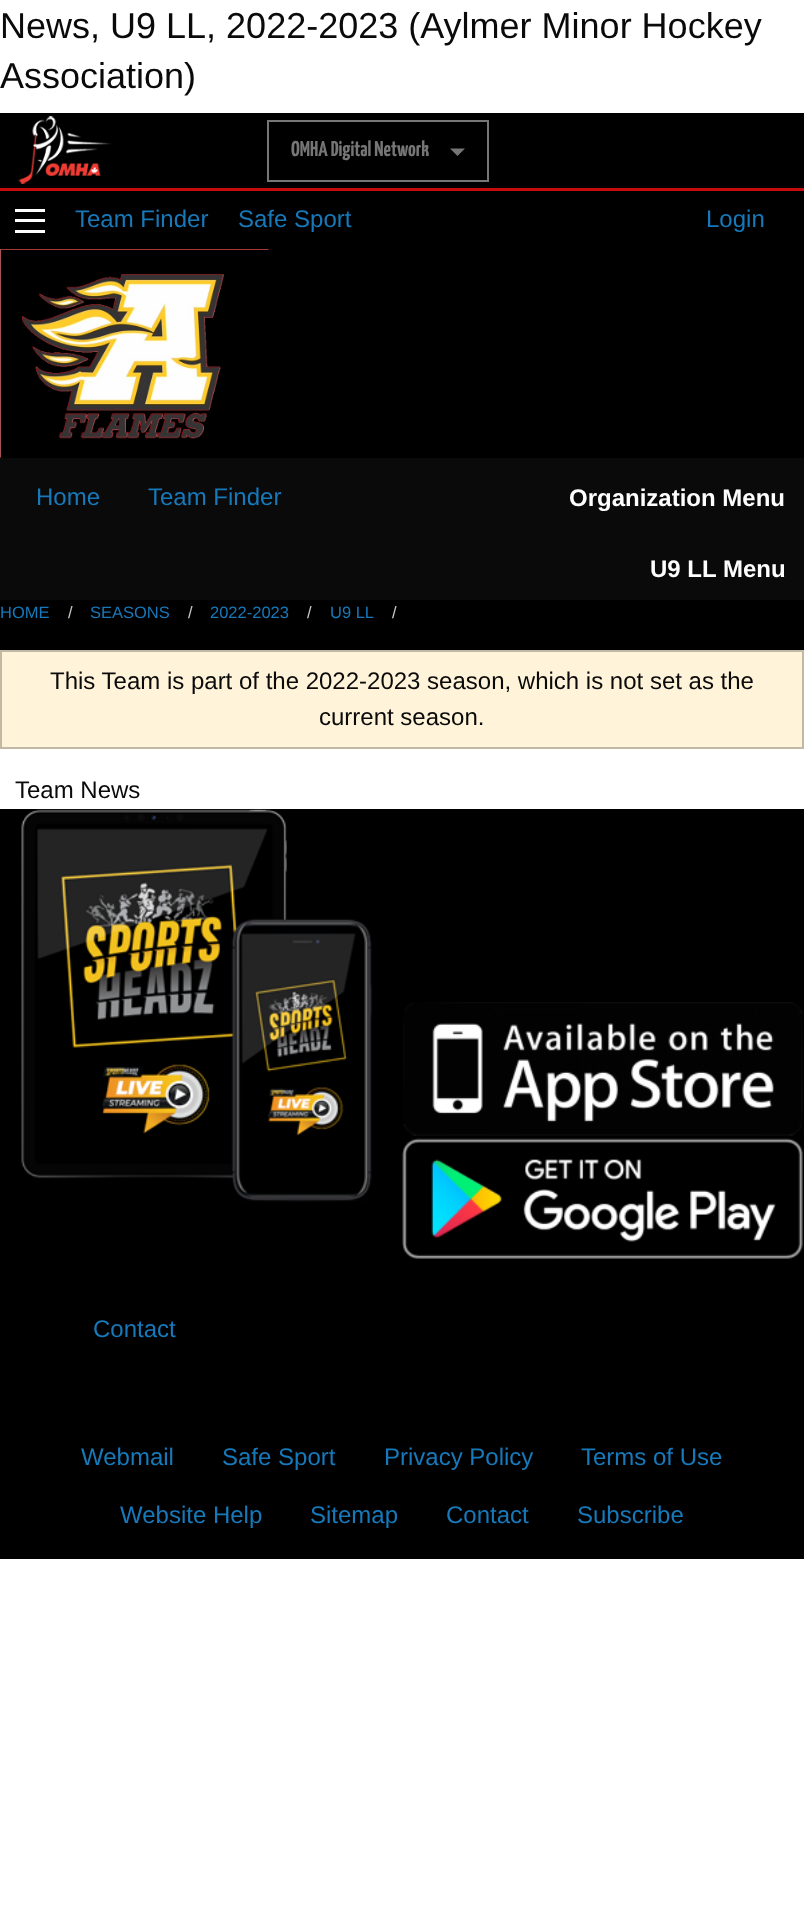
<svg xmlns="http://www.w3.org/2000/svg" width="804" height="1915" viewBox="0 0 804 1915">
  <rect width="100%" height="100%" fill="#fff"/>
  <path d="M0 113h804v75H0z" fill="#000"/>
  <path d="M0 188h804v3H0z" fill="#c60c0c"/>
  <image x="18" y="116" width="94" height="68" href="img/1.png"/>
  <path d="M268 121h220v60H268z" fill="none" stroke="#767676" stroke-width="2"/>
  <path d="M450 148.5H465L457.5 156Z" fill="#767676"/>
  <path d="M0 191h804v1368H0z" fill="#000"/>
  <path d="M15 230h30v3H15z" fill="#fefefe"/>
  <path d="M15 219h30v3H15z" fill="#fefefe"/>
  <path d="M15 209h30v3H15z" fill="#fefefe"/>
  <image x="0" y="249" width="269" height="209" href="img/2.png"/>
  <path d="M0 458h804v142H0z" fill="#0a0a0a"/>
  <path d="M0 749h804v60H0z" fill="#fff"/>
  <path d="M1 651h802v97H1z" fill="#fff3d9" stroke="#c2b9a5" stroke-width="2"/>
  <image x="21" y="808" width="352" height="394" href="img/3.png"/>
  <image x="403" y="1002" width="400" height="134" href="img/4.png"/>
  <image x="402" y="1138" width="401" height="121" href="img/5.png"/>
  <g font-family="Liberation Sans" font-size="36" fill="#0a0a0a">
    <text x="0" y="38">News, U9 LL, 2022-2023 (Aylmer Minor Hockey</text>
    <text x="0" y="88">Association)</text>
  </g>
  <text x="291" y="156" font-family="Yanone Kaffeesatz" font-size="21.5" font-weight="200" fill="#767676">OMHA Digital Network</text>
  <g font-family="Liberation Sans" font-size="24" fill="#1779ba">
    <text x="75" y="227">Team Finder</text>
    <text x="238" y="227">Safe Sport</text>
    <text x="706" y="227">Login</text>
    <text x="36" y="505">Home</text>
    <text x="148" y="505">Team Finder</text>
  </g>
  <g font-family="Liberation Sans" font-size="24" font-weight="bold" fill="#fefefe">
    <text x="569" y="506">Organization Menu</text>
    <text x="650" y="577">U9 LL Menu</text>
  </g>
  <text x="0" y="618" font-family="Liberation Sans" font-size="16.5" fill="#1779ba">HOME</text>
  <text x="68" y="618" font-family="Liberation Sans" font-size="16.5" fill="#cacaca">/</text>
  <text x="90" y="618" font-family="Liberation Sans" font-size="16.5" fill="#1779ba">SEASONS</text>
  <text x="188" y="618" font-family="Liberation Sans" font-size="16.5" fill="#cacaca">/</text>
  <text x="210" y="618" font-family="Liberation Sans" font-size="16.5" fill="#1779ba">2022-2023</text>
  <text x="307" y="618" font-family="Liberation Sans" font-size="16.5" fill="#cacaca">/</text>
  <text x="330" y="618" font-family="Liberation Sans" font-size="16.5" fill="#1779ba">U9 LL</text>
  <text x="392" y="618" font-family="Liberation Sans" font-size="16.5" fill="#cacaca">/</text>
  <g font-family="Liberation Sans" font-size="24" fill="#0a0a0a">
    <text x="50" y="689">This Team is part of the 2022-2023 season, which is not set as the</text>
    <text x="319" y="725">current season.</text>
    <text x="15" y="798">Team News</text>
  </g>
  <g font-family="Liberation Sans" font-size="24" fill="#1779ba">
    <text x="93" y="1337">Contact</text>
    <text x="81" y="1465">Webmail</text>
    <text x="222" y="1465">Safe Sport</text>
    <text x="384" y="1465">Privacy Policy</text>
    <text x="581" y="1465">Terms of Use</text>
    <text x="120" y="1523">Website Help</text>
    <text x="310" y="1523">Sitemap</text>
    <text x="446" y="1523">Contact</text>
    <text x="577" y="1523">Subscribe</text>
  </g>
</svg>
